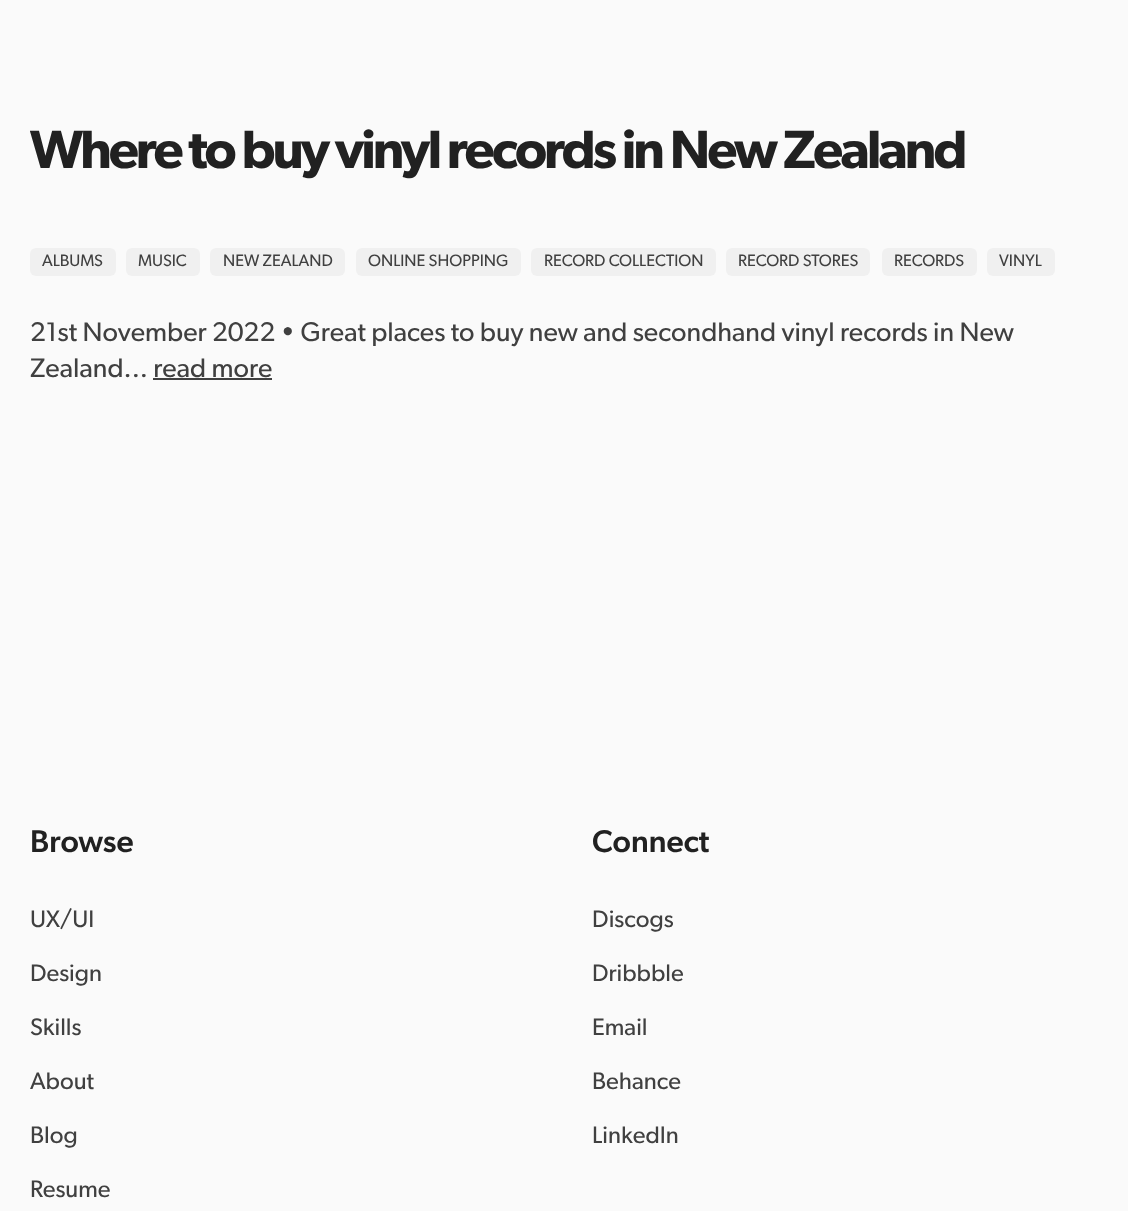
<svg xmlns="http://www.w3.org/2000/svg" width="1128" height="1211" viewBox="0 0 1128 1211">
  <rect width="100%" height="100%" fill="#fafafa"/>
  <rect x="30" y="248" width="86" height="28" rx="6" fill="#f0f0f0"/>
  <rect x="126" y="248" width="74" height="28" rx="6" fill="#f0f0f0"/>
  <rect x="210" y="248" width="135" height="28" rx="6" fill="#f0f0f0"/>
  <rect x="356" y="248" width="165" height="28" rx="6" fill="#f0f0f0"/>
  <rect x="531" y="248" width="185" height="28" rx="6" fill="#f0f0f0"/>
  <rect x="726" y="248" width="144" height="28" rx="6" fill="#f0f0f0"/>
  <rect x="882" y="248" width="95" height="28" rx="6" fill="#f0f0f0"/>
  <rect x="987" y="248" width="68" height="28" rx="6" fill="#f0f0f0"/>
  <path d="M153 378h119v2H153z" fill="#404040"/>
  <text x="30" y="168" font-family="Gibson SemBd" font-size="54" font-weight="600" letter-spacing="-3" fill="#212121">Where to buy vinyl records in New Zealand</text>
  <g font-family="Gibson" font-size="16.5" fill="#404040">
    <text x="42" y="266">ALBUMS</text>
    <text x="138" y="266">MUSIC</text>
    <text x="223" y="266">NEW ZEALAND</text>
    <text x="368" y="266">ONLINE SHOPPING</text>
    <text x="544" y="266">RECORD COLLECTION</text>
    <text x="738" y="266">RECORD STORES</text>
    <text x="894" y="266">RECORDS</text>
    <text x="999" y="266">VINYL</text>
  </g>
  <g font-family="Gibson" font-size="27" fill="#404040">
    <text x="30" y="341">21st November 2022 • Great places to buy new and secondhand vinyl records in New</text>
    <text x="30" y="377">Zealand... read more</text>
  </g>
  <text x="30" y="852" font-family="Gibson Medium" font-size="31.5" font-weight="500" fill="#212121">Browse</text>
  <g font-family="Gibson" font-size="24" fill="#404040">
    <text x="30" y="927">UX/UI</text>
    <text x="30" y="981">Design</text>
    <text x="30" y="1035">Skills</text>
    <text x="30" y="1089">About</text>
    <text x="30" y="1143">Blog</text>
    <text x="30" y="1197">Resume</text>
  </g>
  <text x="592" y="852" font-family="Gibson Medium" font-size="31.5" font-weight="500" fill="#212121">Connect</text>
  <g font-family="Gibson" font-size="24" fill="#404040">
    <text x="592" y="927">Discogs</text>
    <text x="592" y="981">Dribbble</text>
    <text x="592" y="1035">Email</text>
    <text x="592" y="1089">Behance</text>
    <text x="592" y="1143">LinkedIn</text>
  </g>
</svg>
